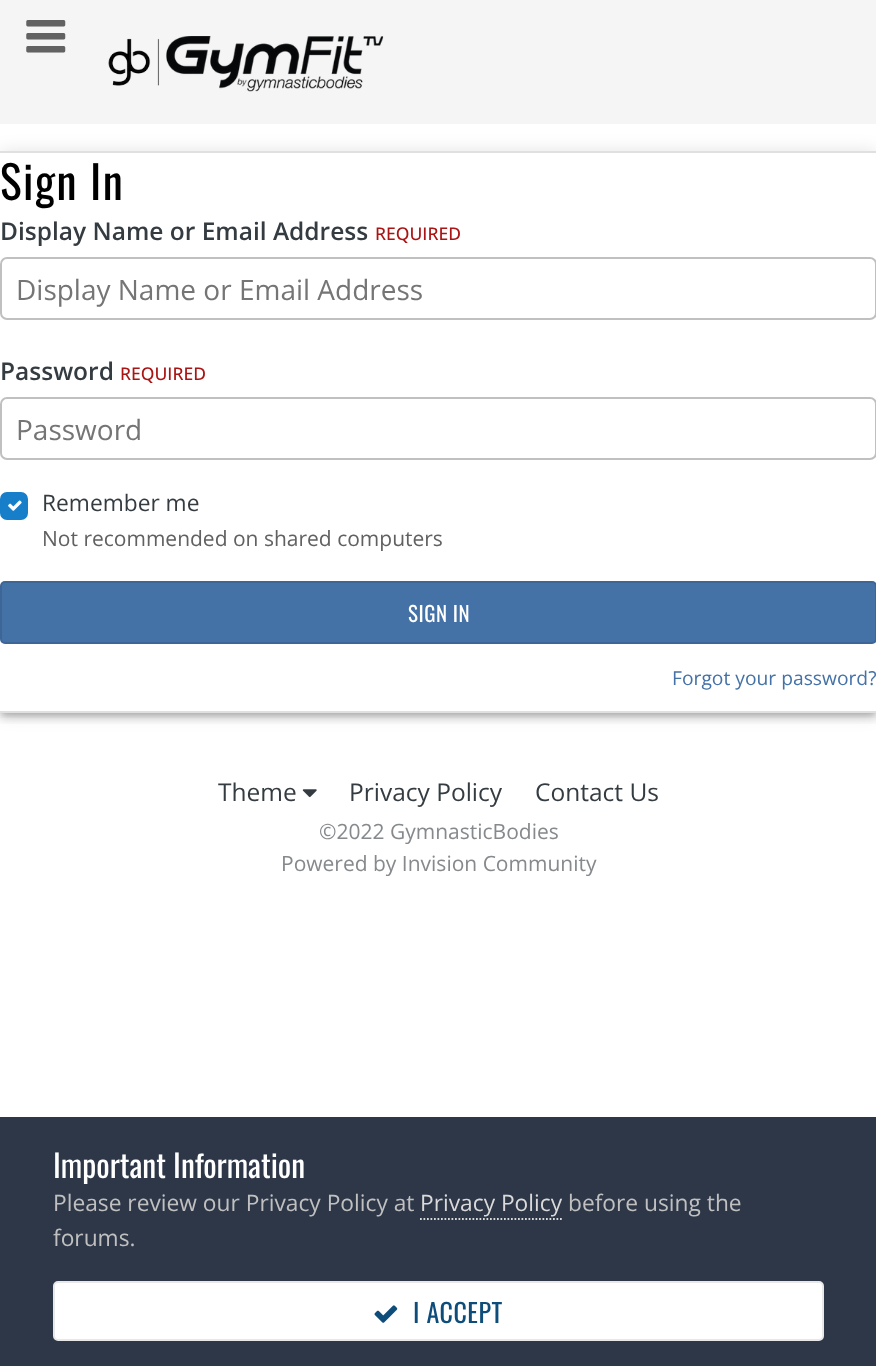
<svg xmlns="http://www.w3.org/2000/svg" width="876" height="1366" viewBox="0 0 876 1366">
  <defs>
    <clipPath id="clip1"><path d="M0 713h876v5H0z"/></clipPath>
    <clipPath id="clip2"><path d="M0 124H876V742H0ZM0 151H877V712H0Z" clip-rule="evenodd"/></clipPath>
    <clipPath id="clip3"><path d="M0 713h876v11H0z"/></clipPath>
  </defs>
  <rect width="100%" height="100%" fill="#fff"/>
  <path d="M0 0h876v124H0z" fill="#f5f5f5"/>
  <image x="26" y="20" width="40" height="33" href="img/1.png"/>
  <image x="108" y="36" width="276" height="56" href="img/2.png"/>
  <g clip-path="url(#clip1)">
    <path d="M2 156h873v558H2z" fill="#00000033" filter="blur(3.5px)"/>
  </g>
  <g clip-path="url(#clip2)">
    <path d="M0 152h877v562H0z" fill="#0000001f" filter="blur(9px)"/>
  </g>
  <g clip-path="url(#clip3)">
    <path d="M0 158h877v561H0z" fill="#00000024" filter="blur(4.5px)"/>
  </g>
  <path d="M0 151h876v2H0z" fill="#e0e0e0"/>
  <path d="M0 711h876v2H0z" fill="#e0e0e0"/>
  <rect x="1" y="258" width="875" height="61" rx="6" fill="none" stroke="#c0c0c0" stroke-width="2"/>
  <rect x="1" y="398" width="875" height="61" rx="6" fill="none" stroke="#c0c0c0" stroke-width="2"/>
  <rect x="1" y="493" width="26" height="26" rx="6" fill="#177ec9" stroke="#177ec9" stroke-width="2"/>
  <image x="8" y="500" width="14" height="11" href="img/3.png"/>
  <rect y="581" width="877" height="63" rx="5" fill="#4471a6"/>
  <rect x="1" y="582" width="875" height="61" rx="4" fill="none" stroke="#0000001a" stroke-width="2"/>
  <image x="302" y="789" width="15" height="9" href="img/4.png"/>
  <path d="M0 1117h876v249H0z" fill="#2d3748"/>
  <path d="M420 1219H562" fill="none" stroke="#dadada" stroke-width="1.8" stroke-dasharray="1.75 1.75"/>
  <rect x="54" y="1282" width="769" height="58" rx="4" fill="#fff" stroke="#e8e8e8" stroke-width="2"/>
  <image x="374" y="1305" width="24" height="18" href="img/5.png"/>
  <text x="0" y="200" font-family="Oswald" font-size="45.5" letter-spacing="1.5" fill="#000">Sign In</text>
  <text x="0" y="240" font-family="Open Sans" font-size="24.5" font-weight="600" fill="#353c41">Display Name or Email Address</text>
  <text x="375" y="240" font-family="Open Sans" font-size="17.5" font-weight="500" fill="#aa1414">REQUIRED</text>
  <text x="16" y="300" font-family="Open Sans" font-size="28" fill="#757575">Display Name or Email Address</text>
  <text x="0" y="380" font-family="Open Sans" font-size="24.5" font-weight="600" fill="#353c41">Password</text>
  <text x="120" y="380" font-family="Open Sans" font-size="17.5" font-weight="500" fill="#aa1414">REQUIRED</text>
  <text x="16" y="440" font-family="Open Sans" font-size="28" fill="#757575">Password</text>
  <text x="42" y="511" font-family="Open Sans" font-size="22.75" fill="#353c41">Remember me</text>
  <text x="42" y="546" font-family="Open Sans" font-size="21" fill="#616161">Not recommended on shared computers</text>
  <text x="408" y="622" font-family="Oswald" font-size="21" letter-spacing="0.5" fill="#fff">SIGN IN</text>
  <text x="672" y="685" font-family="Open Sans" font-size="19.25" fill="#4471a6">Forgot your password?</text>
  <g font-family="Open Sans" font-size="24.5" fill="#353c41">
    <text x="218" y="801">Theme</text>
    <text x="349" y="801">Privacy Policy</text>
    <text x="535" y="801">Contact Us</text>
  </g>
  <g font-family="Open Sans" font-size="21" fill="#868a8d">
    <text x="319" y="839">©2022 GymnasticBodies</text>
    <text x="281" y="871">Powered by Invision Community</text>
  </g>
  <text x="53" y="1178" font-family="Oswald" font-size="31.5" fill="#fff">Important Information</text>
  <text x="53" y="1211" font-family="Open Sans" font-size="22.75" fill="#c0c0c0">Please review our Privacy Policy at</text>
  <text x="420" y="1211" font-family="Open Sans" font-size="22.75" fill="#dadada">Privacy Policy</text>
  <g font-family="Open Sans" font-size="22.75" fill="#c0c0c0">
    <text x="568" y="1211">before using the</text>
    <text x="53" y="1246">forums.</text>
  </g>
  <text x="413" y="1323" font-family="Oswald" font-size="26" letter-spacing="0.5" fill="#0e4c79">I ACCEPT</text>
</svg>
